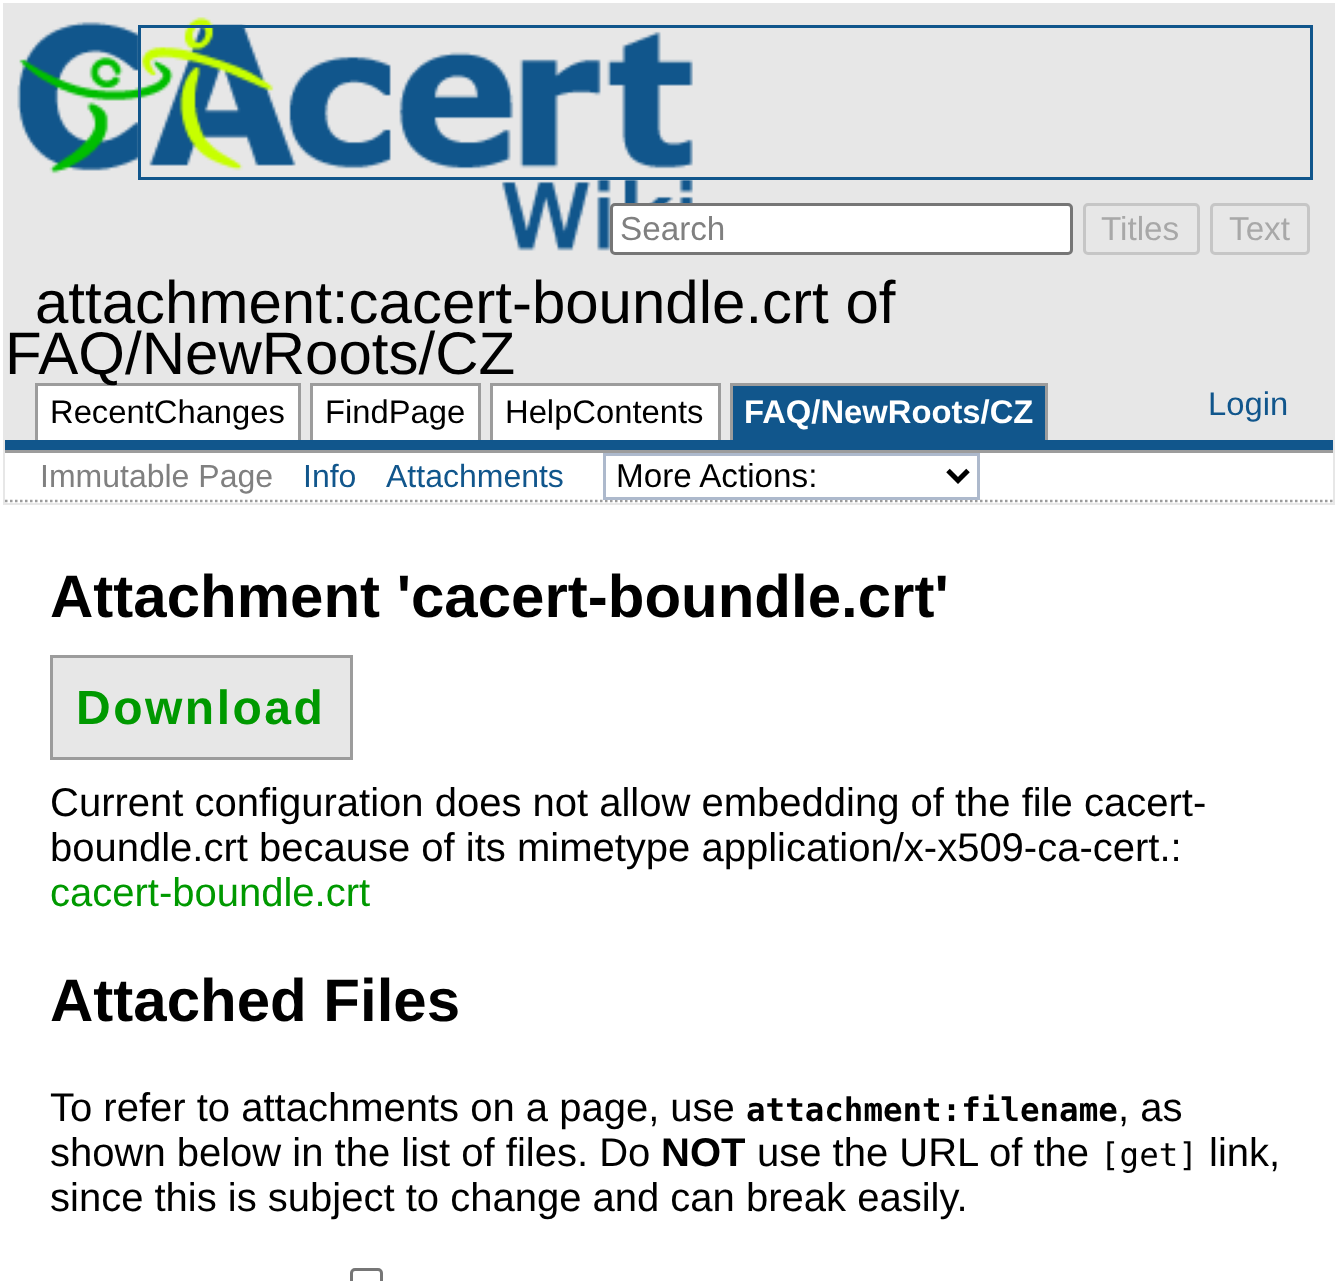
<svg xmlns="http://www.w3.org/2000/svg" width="1336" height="1281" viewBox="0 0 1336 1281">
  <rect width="100%" height="100%" fill="#fff"/>
  <path d="M3 3h1332v502H3z" fill="#e7e7e7"/>
  <image x="17" y="17" width="676" height="234" href="img/1.png"/>
  <path d="M139.5 26.5h1172v152H139.5z" fill="none" stroke="#11568c" stroke-width="3"/>
  <rect x="611.5" y="204.5" width="460" height="49" rx="3.5" fill="#fff" stroke="#767676" stroke-width="3"/>
  <rect x="1084.5" y="204.5" width="114" height="49" rx="3.5" fill="none" stroke="#c6c6c6" stroke-width="3"/>
  <rect x="1211.5" y="204.5" width="97" height="49" rx="3.5" fill="none" stroke="#c6c6c6" stroke-width="3"/>
  <path d="M38 386h260v54H38z" fill="#fff"/>
  <path d="M35 383h265v3H35z" fill="#9c9c9c"/>
  <path d="M298 383h3v57H298z" fill="#9c9c9c"/>
  <path d="M35 383h3v57H35z" fill="#9c9c9c"/>
  <path d="M313 386h165v54H313z" fill="#fff"/>
  <path d="M310 383h170v3H310z" fill="#9c9c9c"/>
  <path d="M478 383h3v57H478z" fill="#9c9c9c"/>
  <path d="M310 383h3v57H310z" fill="#9c9c9c"/>
  <path d="M493 386h225v54H493z" fill="#fff"/>
  <path d="M490 383h230v3H490z" fill="#9c9c9c"/>
  <path d="M718 383h3v57H718z" fill="#9c9c9c"/>
  <path d="M490 383h3v57H490z" fill="#9c9c9c"/>
  <path d="M733 386h312v54H733z" fill="#11568c"/>
  <path d="M730 383h318v3H730z" fill="#9c9c9c"/>
  <path d="M1045 383h3v57H1045z" fill="#9c9c9c"/>
  <path d="M730 383h3v57H730z" fill="#9c9c9c"/>
  <path d="M5 440h1328v10H5z" fill="#11568c"/>
  <path d="M5 450h1328v3H5z" fill="#9c9c9c"/>
  <path d="M5 453h1328v50H5z" fill="#fff"/>
  <path d="M5 501H1332.5" fill="none" stroke="#9c9c9c" stroke-width="2.5" stroke-dasharray="2.5 2.5"/>
  <path d="M604.5 454.5h374v44H604.5z" fill="none" stroke="#adb9cc" stroke-width="3"/>
  <path d="M948 470.5L958 480.5L968 470.5" fill="none" stroke="#000" stroke-width="5"/>
  <path d="M51.5 656.5h300v102H51.5z" fill="#e7e7e7" stroke="#9c9c9c" stroke-width="3"/>
  <rect x="351.5" y="1269.5" width="30" height="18" rx="3.5" fill="none" stroke="#767676" stroke-width="3"/>
  <text x="620" y="240" font-family="Liberation Sans" font-size="33.25" fill="#808080">Search</text>
  <g font-family="Liberation Sans" font-size="33.25" fill="#a8a8a8">
    <text x="1101" y="240">Titles</text>
    <text x="1229" y="240">Text</text>
  </g>
  <g font-family="Liberation Sans" font-size="60" fill="#000">
    <text x="35" y="323">attachment:cacert-boundle.crt of</text>
    <text x="5" y="374">FAQ/NewRoots/CZ</text>
  </g>
  <g font-family="Liberation Sans" font-size="32.75" fill="#000">
    <text x="50" y="423">RecentChanges</text>
    <text x="325" y="423">FindPage</text>
    <text x="505" y="423">HelpContents</text>
  </g>
  <text x="744" y="423" font-family="Liberation Sans" font-size="32.75" font-weight="bold" fill="#fff">FAQ/NewRoots/CZ</text>
  <text x="1208" y="415" font-family="Liberation Sans" font-size="32.75" fill="#11568c">Login</text>
  <text x="40" y="487" font-family="Liberation Sans" font-size="32" fill="#808080">Immutable Page</text>
  <g font-family="Liberation Sans" font-size="32" fill="#11568c">
    <text x="303" y="487">Info</text>
    <text x="386" y="487">Attachments</text>
  </g>
  <text x="616" y="487" font-family="Liberation Sans" font-size="33.25" fill="#000">More Actions:</text>
  <text x="50" y="617" font-family="Liberation Sans" font-size="60" font-weight="bold" fill="#000">Attachment 'cacert-boundle.crt'</text>
  <text x="76" y="724" font-family="Liberation Sans" font-size="48" font-weight="bold" letter-spacing="2.5" fill="#090">Download</text>
  <g font-family="Liberation Sans" font-size="40" fill="#000">
    <text x="50" y="816">Current configuration does not allow embedding of the file cacert-</text>
    <text x="50" y="861">boundle.crt because of its mimetype application/x-x509-ca-cert.:</text>
  </g>
  <text x="50" y="906" font-family="Liberation Sans" font-size="40" fill="#090">cacert-boundle.crt</text>
  <text x="50" y="1021" font-family="Liberation Sans" font-size="60" font-weight="bold" fill="#000">Attached Files</text>
  <text x="50" y="1121" font-family="Liberation Sans" font-size="40" fill="#000">To refer to attachments on a page, use</text>
  <text x="746" y="1121" font-family="DejaVu Sans Mono" font-size="32.5" font-weight="bold" fill="#000">attachment:filename</text>
  <g font-family="Liberation Sans" font-size="40" fill="#000">
    <text x="1118" y="1121">, as</text>
    <text x="50" y="1166">shown below in the list of files. Do</text>
  </g>
  <text x="661" y="1166" font-family="Liberation Sans" font-size="40" font-weight="bold" fill="#000">NOT</text>
  <text x="757" y="1166" font-family="Liberation Sans" font-size="40" fill="#000">use the URL of the</text>
  <text x="1100" y="1166" font-family="DejaVu Sans Mono" font-size="32.5" fill="#000">[get]</text>
  <g font-family="Liberation Sans" font-size="40" fill="#000">
    <text x="1209" y="1166">link,</text>
    <text x="50" y="1211">since this is subject to change and can break easily.</text>
  </g>
</svg>
